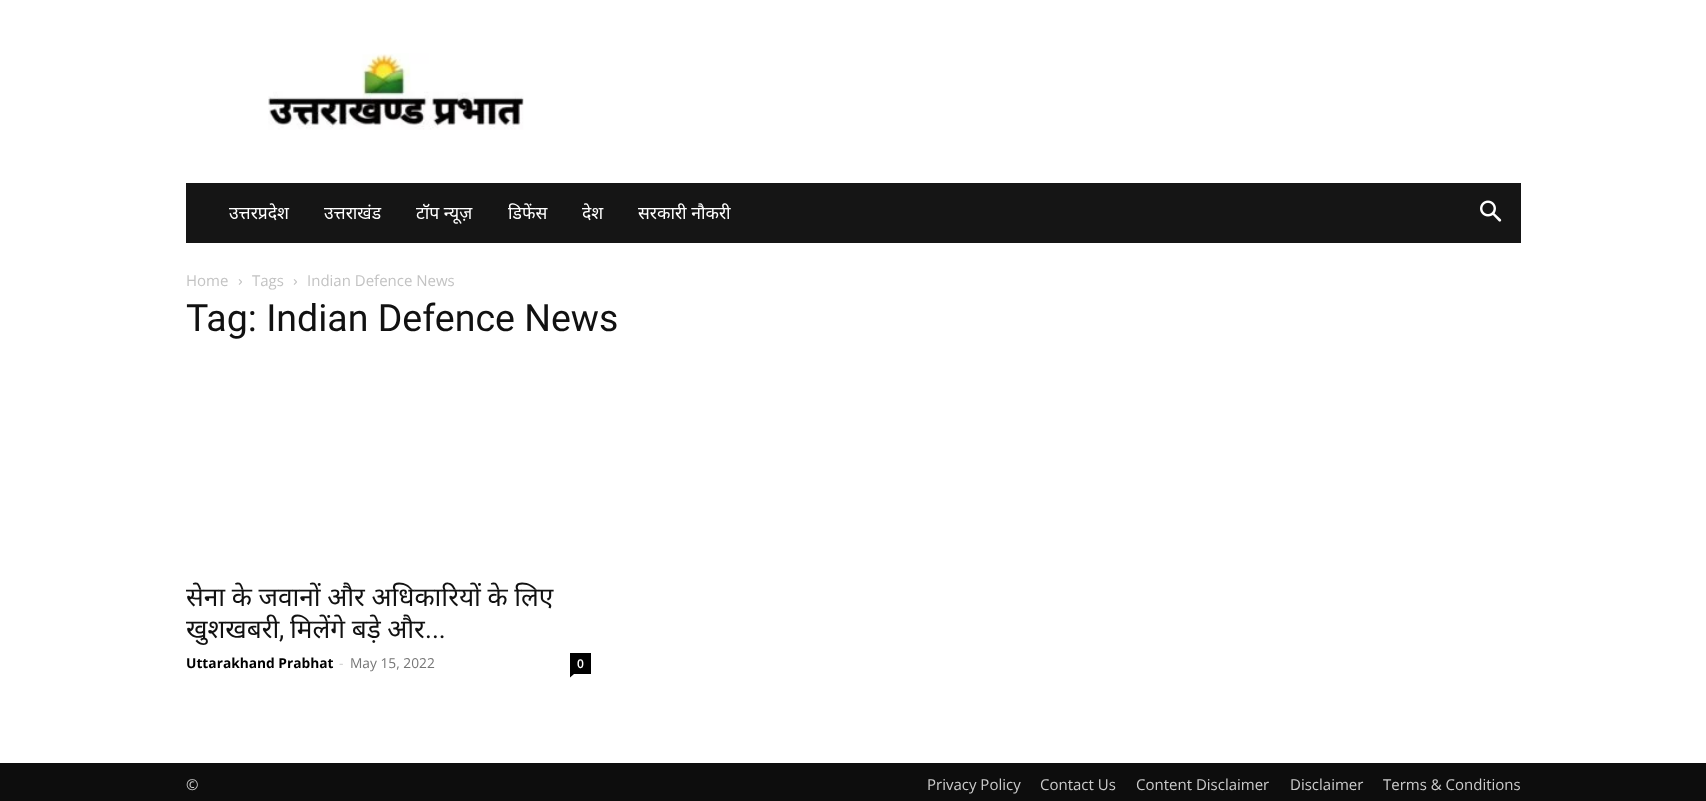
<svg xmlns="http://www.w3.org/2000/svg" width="1706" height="801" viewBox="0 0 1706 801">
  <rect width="100%" height="100%" fill="#fff"/>
  <image x="268" y="53" width="256" height="77" href="img/1.png"/>
  <path d="M186 183h1335v60H186z" fill="#151515"/>
  <image x="1480" y="200" width="22" height="22" href="img/2.png"/>
  <image x="238" y="279" width="4" height="6" href="img/3.png"/>
  <image x="293" y="279" width="4" height="6" href="img/3.png"/>
  <path d="M570 653h21v21H570z" fill="#000"/>
  <path d="M570 674H574L570 677.5Z" fill="#000"/>
  <path d="M0 763h1706v38H0z" fill="#0d0d0d"/>
  <g font-family="Noto Sans" font-size="17.5" fill="#fff">
    <text x="229" y="219">उत्तरप्रदेश</text>
    <text x="324" y="219">उत्तराखंड</text>
    <text x="416" y="219">टॉप न्यूज़</text>
    <text x="508" y="219">डिफेंस</text>
    <text x="582" y="219">देश</text>
    <text x="638" y="219">सरकारी नौकरी</text>
  </g>
  <g font-family="Open Sans" font-size="15" fill="#c3c3c3">
    <text x="186" y="286">Home</text>
    <text x="252" y="286">Tags</text>
    <text x="307" y="286">Indian Defence News</text>
  </g>
  <text x="186" y="331" font-family="Roboto" font-size="37.5" fill="#111">Tag: Indian Defence News</text>
  <g font-family="Noto Sans" font-size="26.25" fill="#111">
    <text x="186" y="606" word-spacing="-0.25">सेना के जवानों और अधिकारियों के लिए</text>
    <text x="186" y="638">खुशखबरी</text>
  </g>
  <text x="279" y="638" font-family="Roboto" font-size="26.25" fill="#111">,</text>
  <text x="290" y="638" word-spacing="-0.25" font-family="Noto Sans" font-size="26.25" fill="#111">मिलेंगे बड़े और</text>
  <text x="425" y="638" font-family="Roboto" font-size="26.25" fill="#111">...</text>
  <text x="186" y="668" font-family="Open Sans" font-size="13.75" font-weight="bold" fill="#000">Uttarakhand Prabhat</text>
  <text x="339" y="668" font-family="Open Sans" font-size="13.75" fill="#ccc">-</text>
  <text x="350" y="668" font-family="Open Sans" font-size="13.75" fill="#767676">May 15, 2022</text>
  <text x="577" y="668" font-family="Open Sans" font-size="12" font-weight="600" fill="#fff">0</text>
  <g font-family="Open Sans" font-size="15" fill="#ccc">
    <text x="186" y="790">©</text>
    <text x="927" y="790">Privacy Policy</text>
    <text x="1040" y="790">Contact Us</text>
    <text x="1136" y="790">Content Disclaimer</text>
    <text x="1290" y="790">Disclaimer</text>
    <text x="1383" y="790">Terms &amp; Conditions</text>
  </g>
</svg>
